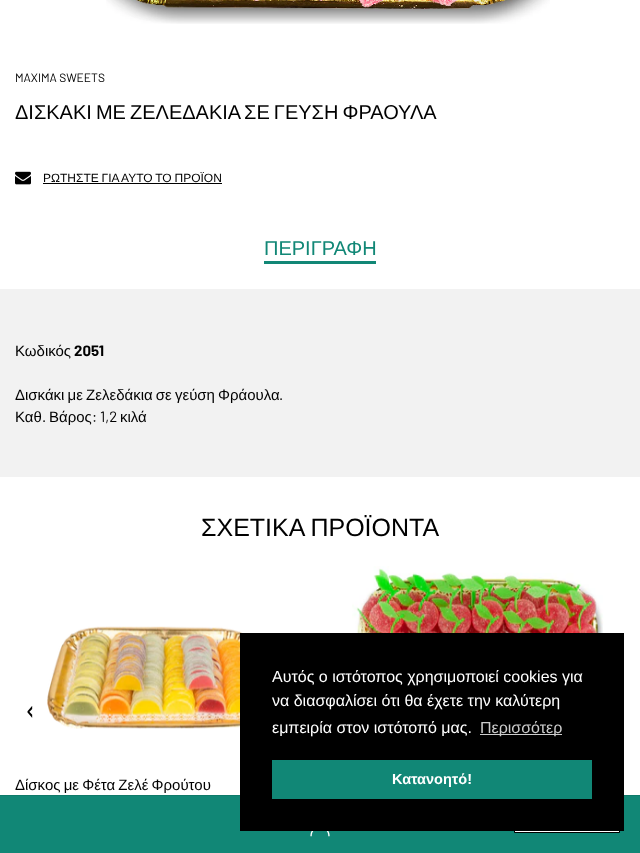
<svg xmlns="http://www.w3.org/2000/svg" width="640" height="853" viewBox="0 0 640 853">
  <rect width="100%" height="100%" fill="#fff"/>
  <image x="106" y="0" width="444" height="24" href="img/1.png"/>
  <image x="15" y="171" width="16" height="14" href="img/2.png"/>
  <path d="M43 183h179v1H43z" fill="#000"/>
  <path d="M264 261h112v3H264z" fill="#118776"/>
  <path d="M0 289h640v188H0z" fill="#f2f2f2"/>
  <image x="27" y="706" width="6" height="12" href="img/3.png"/>
  <image x="352" y="566" width="252" height="67" href="img/4.png"/>
  <image x="47" y="626" width="196" height="103" href="img/5.png"/>
  <path d="M0 796h640v57H0z" fill="#118776"/>
  <path d="M0 795h640v1H0z" fill="#0f7a6a"/>
  <image x="310" y="831" width="20" height="6" href="img/6.png"/>
  <path d="M515 831h104v1H515z" fill="#fff"/>
  <path d="M514.5 799.5h105v33H514.5z" fill="none" stroke="#000"/>
  <path d="M240 633h384v198H240z" fill="#000"/>
  <path d="M480 734h82v1H480z" fill="#ccc"/>
  <path d="M272 760h320v39H272z" fill="#118776"/>
  <text x="15" y="82" font-family="Barlow" font-size="12" fill="#000">MAXIMA SWEETS</text>
  <text x="15" y="119" word-spacing="-1.5" font-family="Liberation Sans" font-size="20" fill="#000">ΔΙΣΚΑΚΙ ΜΕ ΖΕΛΕΔΑΚΙΑ ΣΕ ΓΕΥΣΗ ΦΡΑΟΥΛΑ</text>
  <text x="43" y="182" word-spacing="-0.5" font-family="Liberation Sans" font-size="12" fill="#000">ΡΩΤΗΣΤΕ ΓΙΑ ΑΥΤΟ ΤΟ ΠΡΟΪΟΝ</text>
  <text x="264" y="255" font-family="Liberation Sans" font-size="20" fill="#118776">ΠΕΡΙΓΡΑΦΗ</text>
  <text x="15" y="356" font-family="Liberation Sans" font-size="15" fill="#000">Κωδικός</text>
  <text x="74" y="356" font-family="Barlow" font-size="15" font-weight="bold" fill="#000">2051</text>
  <text x="15" y="400" word-spacing="-1" font-family="Liberation Sans" font-size="15" fill="#000">Δισκάκι με Ζελεδάκια σε γεύση Φράουλα</text>
  <text x="279" y="400" font-family="Barlow" font-size="15" fill="#000">.</text>
  <text x="15" y="422" font-family="Liberation Sans" font-size="15" fill="#000">Καθ</text>
  <text x="42" y="422" font-family="Barlow" font-size="15" fill="#000">.</text>
  <text x="49" y="422" font-family="Liberation Sans" font-size="15" fill="#000">Βάρος</text>
  <text x="92" y="422" font-family="Barlow" font-size="15" fill="#000">: 1,2</text>
  <text x="120" y="422" font-family="Liberation Sans" font-size="15" fill="#000">κιλά</text>
  <text x="201" y="536" word-spacing="-0.5" font-family="Liberation Sans" font-size="25" fill="#000">ΣΧΕΤΙΚΑ ΠΡΟΪΟΝΤΑ</text>
  <text x="15" y="790" word-spacing="-1" font-family="Liberation Sans" font-size="15" fill="#000">Δίσκος με Φέτα Ζελέ Φρούτου</text>
  <g font-family="Liberation Sans" font-size="16" fill="#fff">
    <text x="272" y="682">Αυτός ο ιστότοπος χρησιμοποιεί cookies για</text>
    <text x="272" y="706">να διασφαλίσει ότι θα έχετε την καλύτερη</text>
    <text x="272" y="733">εμπειρία στον ιστότοπό μας.</text>
  </g>
  <text x="480" y="733" font-family="Liberation Sans" font-size="16" fill="#ccc">Περισσότερ</text>
  <text x="392" y="784" font-family="Liberation Sans" font-size="14.5" font-weight="bold" fill="#fff">Κατανοητό!</text>
</svg>
